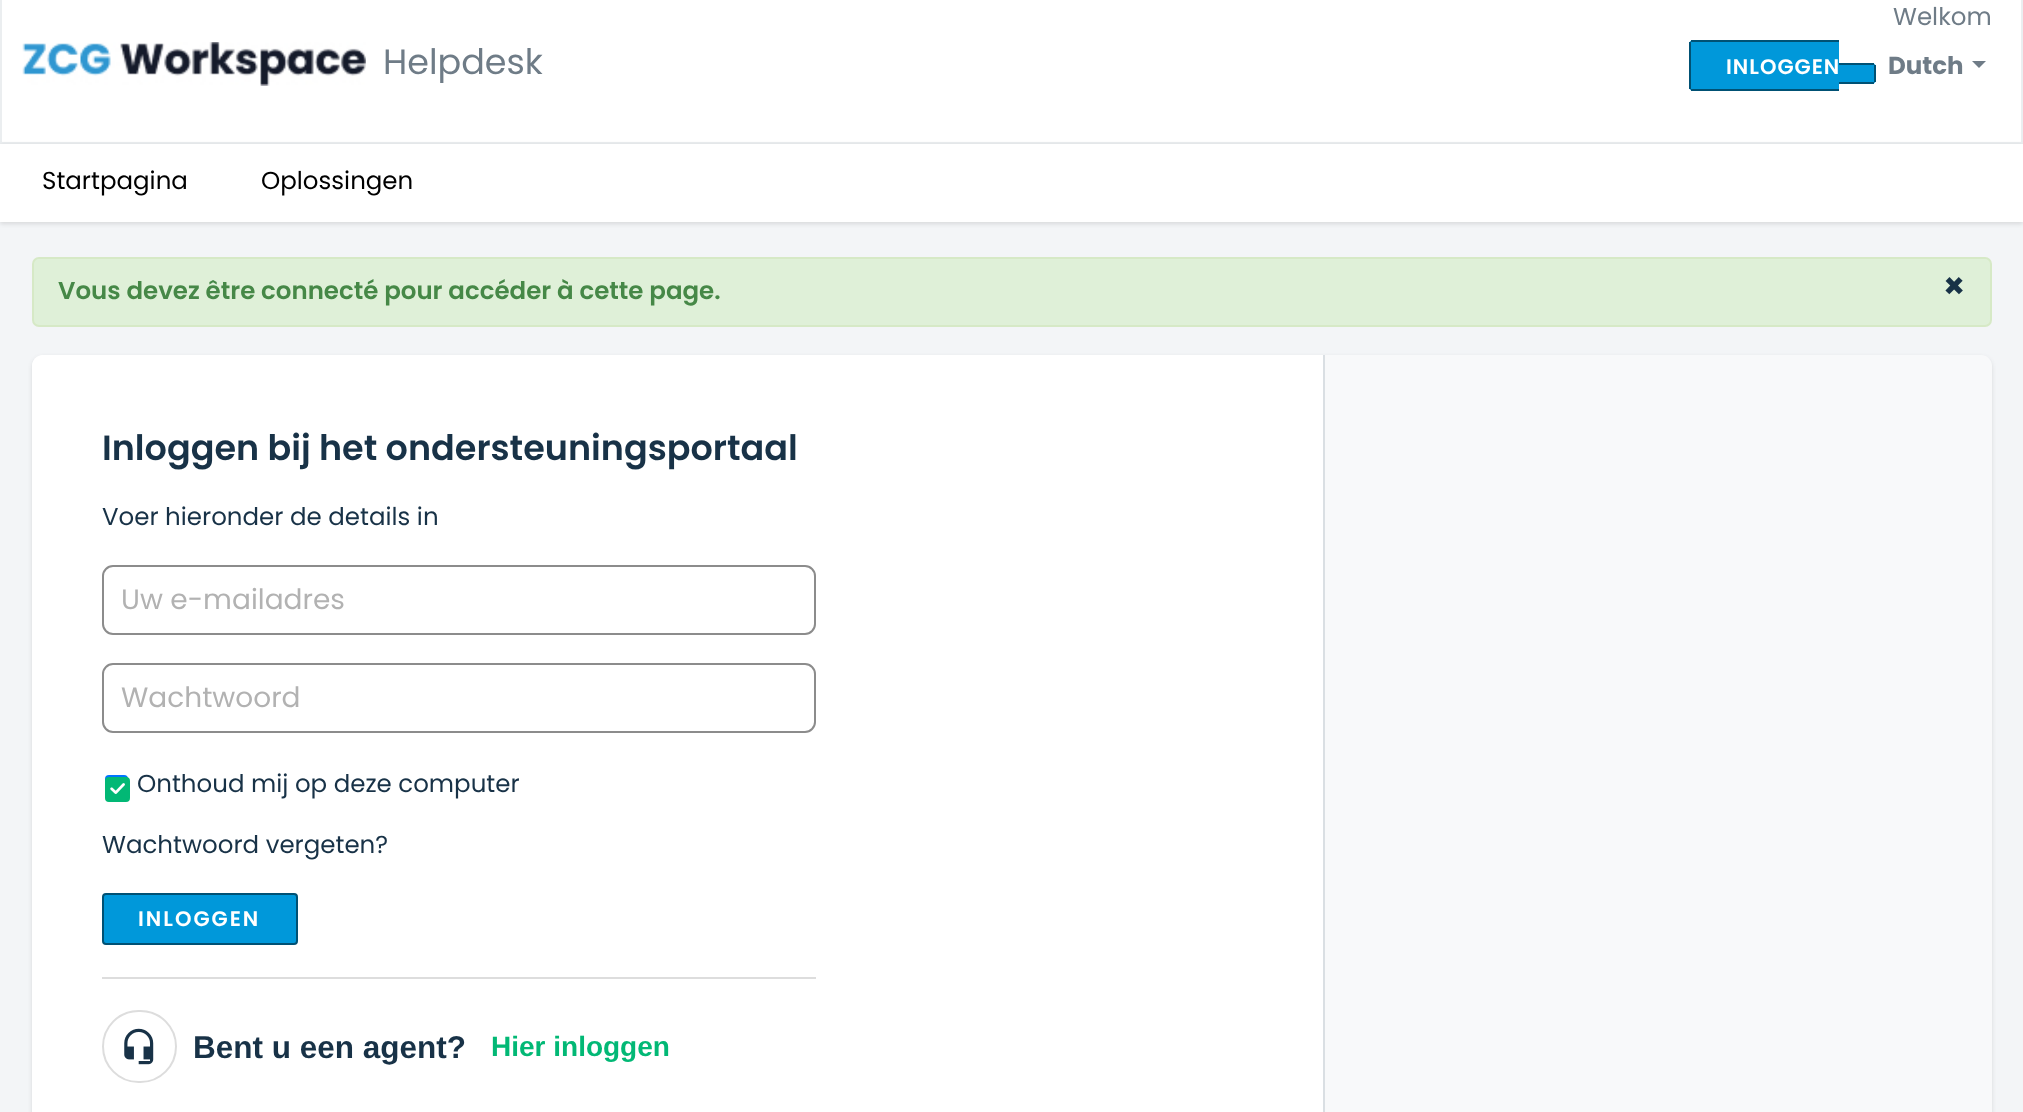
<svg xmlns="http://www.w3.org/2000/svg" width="2023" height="1112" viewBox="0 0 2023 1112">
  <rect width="100%" height="100%" fill="#f3f5f7"/>
  <path d="M1 -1h2021v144H1z" fill="#fff" stroke="#ebeef0" stroke-width="2"/>
  <image x="22" y="42" width="344" height="44" href="img/1.png"/>
  <path d="M1693 40H1839V91H1693C1691 91 1689 89 1689 87V44C1689 42 1691 40 1693 40Z" fill="#0098da"/>
  <path d="M1691 40h148v2H1691z" fill="#005174"/>
  <path d="M1691 89h148v2H1691z" fill="#005174"/>
  <path d="M1689 42h2v47H1689z" fill="#005174"/>
  <path d="M1839 63H1872C1874 63 1876 65 1876 67V80C1876 82 1874 84 1872 84H1839Z" fill="#0098da"/>
  <path d="M1839 63h35v2H1839z" fill="#005174"/>
  <path d="M1874 65h2v17H1874z" fill="#005174"/>
  <path d="M1839 82h35v2H1839z" fill="#005174"/>
  <path d="M1972 61H1986L1979 68Z" fill="#6f7c87"/>
  <path d="M0 145h2023v79H0z" fill="#3f3f4426" filter="blur(2px)"/>
  <path d="M0 144h2023v78H0z" fill="#fff"/>
  <rect x="33" y="258" width="1958" height="68" rx="6" fill="#dff0d8" stroke="#d6e9c6" stroke-width="2"/>
  <rect x="32" y="357" width="1960" height="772" rx="11" fill="#3f3f4426" filter="blur(2px)"/>
  <rect x="32" y="355" width="1960" height="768" rx="11" fill="#f8f9fa"/>
  <path d="M43 355H1325V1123H43C37 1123 32 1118 32 1112V366C32 360 37 355 43 355Z" fill="#fff"/>
  <path d="M1323 355h2v757H1323z" fill="#dadfe3"/>
  <rect x="103" y="566" width="712" height="68" rx="10" fill="none" stroke="#8c8c8c" stroke-width="2"/>
  <rect x="103" y="664" width="712" height="68" rx="10" fill="none" stroke="#8c8c8c" stroke-width="2"/>
  <rect x="105" y="775" width="23" height="23" rx="4" fill="#0075ff"/>
  <rect x="106" y="778" width="23" height="23" rx="3" fill="#02b875" stroke="#02b875" stroke-width="2"/>
  <image x="110" y="783" width="15" height="11" href="img/2.png"/>
  <rect x="103" y="894" width="194" height="50" rx="3" fill="#0098da" stroke="#005174" stroke-width="2"/>
  <path d="M102 977h714v2H102z" fill="#ddd"/>
  <rect x="103" y="1011" width="73" height="71" rx="35.5" fill="none" stroke="#ddd" stroke-width="2"/>
  <image x="124" y="1028" width="30" height="37" href="img/3.png"/>
  <text x="383" y="74" font-family="Poppins" font-size="35" fill="#6f7c87">Helpdesk</text>
  <text x="1893" y="25" font-family="Poppins" font-size="24.5" fill="#6f7c87">Welkom</text>
  <text x="1726" y="74" font-family="Poppins" font-size="21" font-weight="600" letter-spacing="1" fill="#fff">INLOGGEN</text>
  <text x="1888" y="74" font-family="Poppins" font-size="24.5" font-weight="bold" fill="#6f7c87">Dutch</text>
  <g font-family="Poppins" font-size="24.5" fill="#000">
    <text x="42" y="189">Startpagina</text>
    <text x="261" y="189">Oplossingen</text>
  </g>
  <text x="58" y="299" font-family="Poppins" font-size="24.5" font-weight="600" fill="#468847">Vous devez être connecté pour accéder à cette page.</text>
  <text x="1943" y="298" font-family="Poppins" font-size="35" font-weight="bold" fill="#183247">×</text>
  <text x="102" y="460" font-family="Poppins" font-size="35" font-weight="600" fill="#183247">Inloggen bij het ondersteuningsportaal</text>
  <text x="102" y="525" font-family="Poppins" font-size="24.5" fill="#183247">Voer hieronder de details in</text>
  <g font-family="Poppins" font-size="28" fill="#b2b2b2">
    <text x="121" y="609">Uw e-mailadres</text>
    <text x="121" y="707">Wachtwoord</text>
  </g>
  <g font-family="Poppins" font-size="24.5" fill="#183247">
    <text x="137" y="792">Onthoud mij op deze computer</text>
    <text x="102" y="853">Wachtwoord vergeten?</text>
  </g>
  <text x="138" y="926" font-family="Poppins" font-size="21" font-weight="600" letter-spacing="2" fill="#fff">INLOGGEN</text>
  <text x="193" y="1058" font-family="Liberation Sans" font-size="31.5" font-weight="bold" fill="#183247">Bent u een agent?</text>
  <text x="491" y="1056" font-family="Liberation Sans" font-size="28" font-weight="bold" fill="#02b875">Hier inloggen</text>
</svg>
